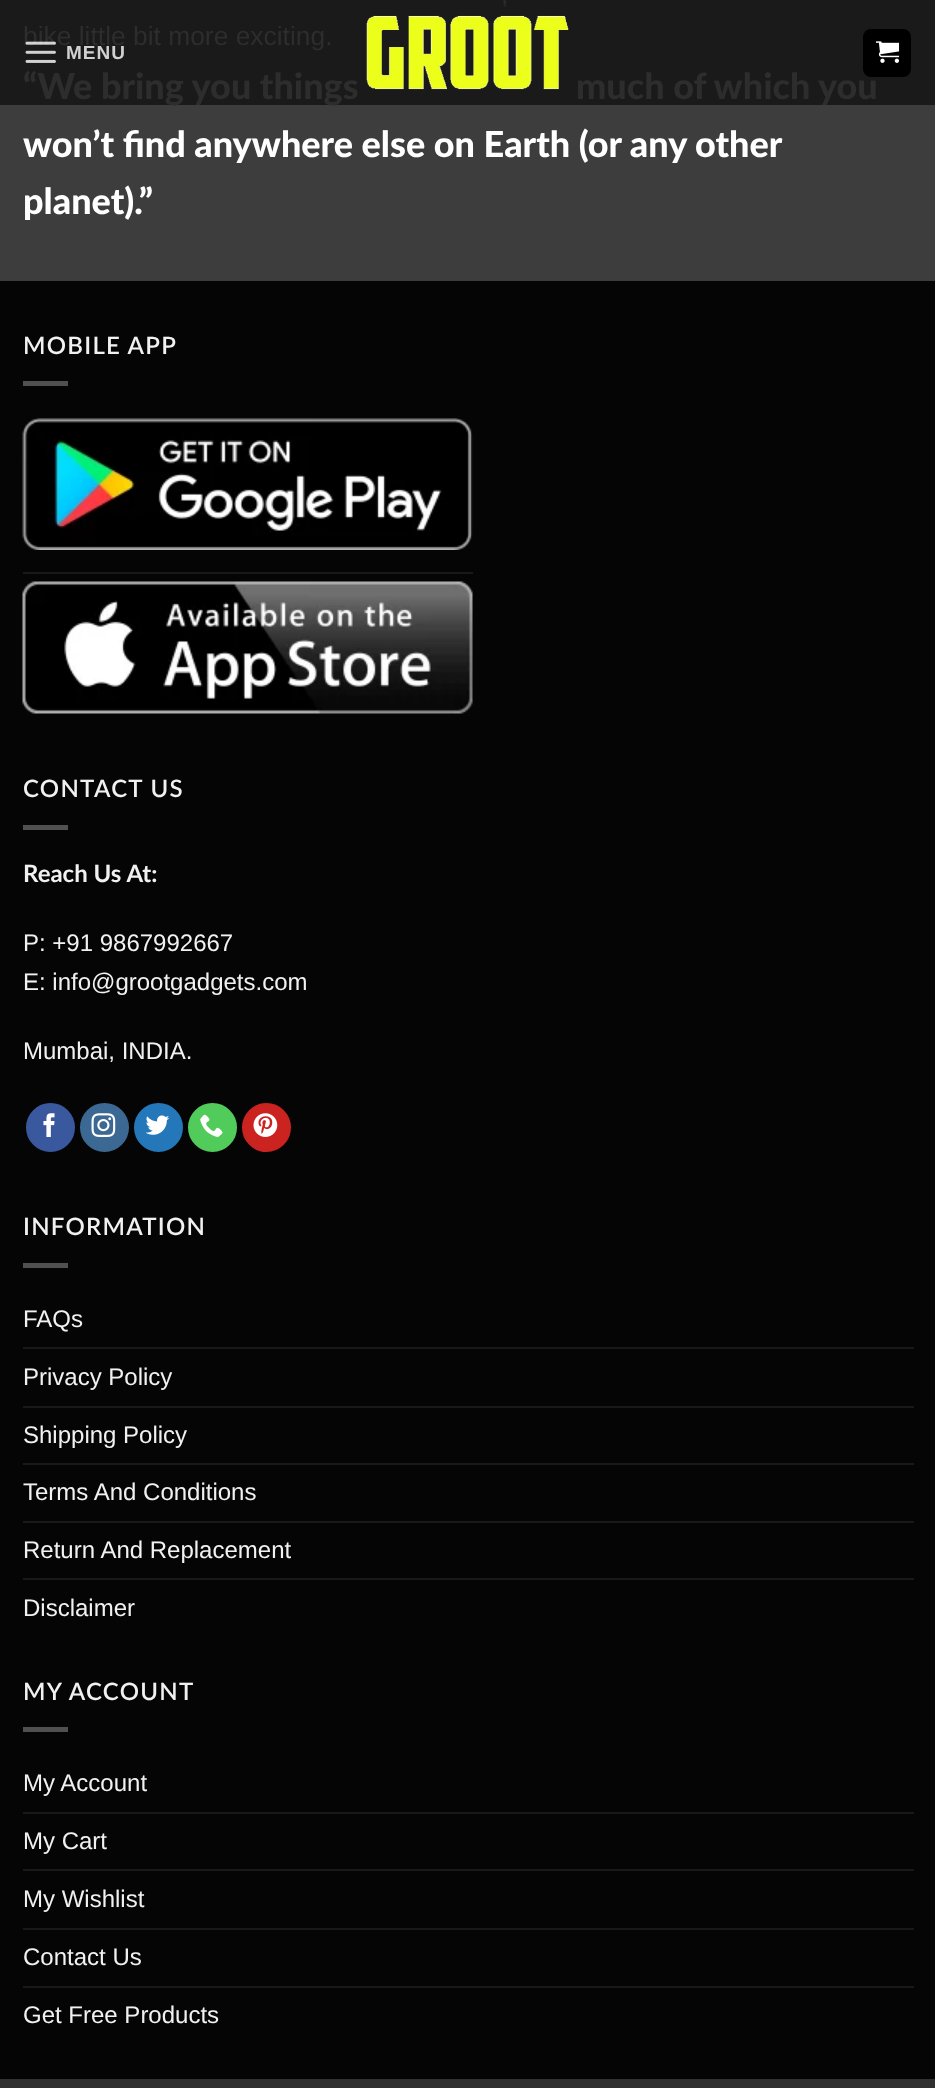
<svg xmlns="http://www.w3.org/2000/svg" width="935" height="2088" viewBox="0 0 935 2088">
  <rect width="100%" height="100%" fill="#3d3d3d"/>
  <path d="M0 0h935v105H0z" fill="#1a1a1a"/>
  <path d="M0 281h935v1798H0z" fill="#050505"/>
  <path d="M23 381h45v5H23z" fill="#505050"/>
  <image x="22" y="418" width="451" height="132" href="img/1.png"/>
  <path d="M23 572h450v2H23z" fill="#191919"/>
  <image x="22" y="581" width="451" height="133" href="img/2.png"/>
  <path d="M23 825h45v5H23z" fill="#505050"/>
  <circle cx="50.5" cy="1127.5" r="23.5" fill="#3a589d" stroke="#3a589d" stroke-width="2"/>
  <image x="43" y="1113" width="12" height="24" href="img/3.png"/>
  <circle cx="104.5" cy="1127.5" r="23.5" fill="#3b6994" stroke="#3b6994" stroke-width="2"/>
  <image x="91" y="1113" width="25" height="24" href="img/4.png"/>
  <circle cx="158.5" cy="1127.5" r="23.5" fill="#2478ba" stroke="#2478ba" stroke-width="2"/>
  <image x="145" y="1115" width="25" height="20" href="img/5.png"/>
  <circle cx="212.5" cy="1127.5" r="23.5" fill="#51cb5a" stroke="#51cb5a" stroke-width="2"/>
  <image x="200" y="1114" width="23" height="23" href="img/6.png"/>
  <circle cx="266.5" cy="1127.5" r="23.5" fill="#cb2320" stroke="#cb2320" stroke-width="2"/>
  <image x="253" y="1113" width="25" height="24" href="img/7.png"/>
  <path d="M23 1263h45v5H23z" fill="#505050"/>
  <path d="M23 1347h891v2H23z" fill="#191919"/>
  <path d="M23 1406h891v2H23z" fill="#191919"/>
  <path d="M23 1463h891v2H23z" fill="#191919"/>
  <path d="M23 1521h891v2H23z" fill="#191919"/>
  <path d="M23 1578h891v2H23z" fill="#191919"/>
  <path d="M23 1727h45v5H23z" fill="#505050"/>
  <path d="M23 1812h891v2H23z" fill="#191919"/>
  <path d="M23 1869h891v2H23z" fill="#191919"/>
  <path d="M23 1928h891v2H23z" fill="#191919"/>
  <path d="M23 1986h891v2H23z" fill="#191919"/>
  <path d="M0 2079h935v9H0z" fill="#303030"/>
  <image x="366" y="15" width="203" height="75" href="img/9.png"/>
  <g font-family="Liberation Sans" font-size="26.4" fill="#2d2d2d">
    <text x="501" y="3">,</text>
    <text x="23" y="45">bike little bit more exciting.</text>
  </g>
  <g font-family="Lato" font-size="36" font-weight="900" fill="#2d2d2d">
    <text x="23" y="99">“We bring you things</text>
    <text x="576" y="99">much of which you</text>
  </g>
  <g font-family="Lato" font-size="36" font-weight="900" fill="#fff">
    <text x="23" y="157">won’t find anywhere else on Earth (or any other</text>
    <text x="23" y="214">planet).”</text>
  </g>
  <g font-family="Lato" font-size="24" font-weight="600" letter-spacing="1.25" fill="#f1f1f1">
    <text x="23" y="354">MOBILE APP</text>
    <text x="23" y="797">CONTACT US</text>
  </g>
  <text x="23" y="882" font-family="Lato" font-size="24" font-weight="bold" fill="#f1f1f1">Reach Us At:</text>
  <g font-family="Liberation Sans" font-size="24" fill="#f1f1f1">
    <text x="23" y="951">P: +91 9867992667</text>
    <text x="23" y="990">E: info@grootgadgets.com</text>
    <text x="23" y="1059">Mumbai, INDIA.</text>
  </g>
  <text x="23" y="1235" font-family="Lato" font-size="24" font-weight="600" letter-spacing="1.25" fill="#f1f1f1">INFORMATION</text>
  <g font-family="Liberation Sans" font-size="24" fill="#f1f1f1">
    <text x="23" y="1327">FAQs</text>
    <text x="23" y="1385">Privacy Policy</text>
    <text x="23" y="1443">Shipping Policy</text>
    <text x="23" y="1500">Terms And Conditions</text>
    <text x="23" y="1558">Return And Replacement</text>
    <text x="23" y="1616">Disclaimer</text>
  </g>
  <text x="23" y="1700" font-family="Lato" font-size="24" font-weight="600" letter-spacing="1.25" fill="#f1f1f1">MY ACCOUNT</text>
  <g font-family="Liberation Sans" font-size="24" fill="#f1f1f1">
    <text x="23" y="1791">My Account</text>
    <text x="23" y="1849">My Cart</text>
    <text x="23" y="1907">My Wishlist</text>
    <text x="23" y="1965">Contact Us</text>
    <text x="23" y="2023">Get Free Products</text>
  </g>
  <image x="25" y="41" width="31" height="22" href="img/8.png"/>
  <text x="66" y="59" font-family="Liberation Sans" font-size="19" font-weight="bold" letter-spacing="1" fill="#d1d1d1">MENU</text>
  <rect x="863" y="29" width="48" height="48" rx="8" fill="#000"/>
  <image x="876" y="41" width="24" height="22" href="img/10.png"/>
</svg>
